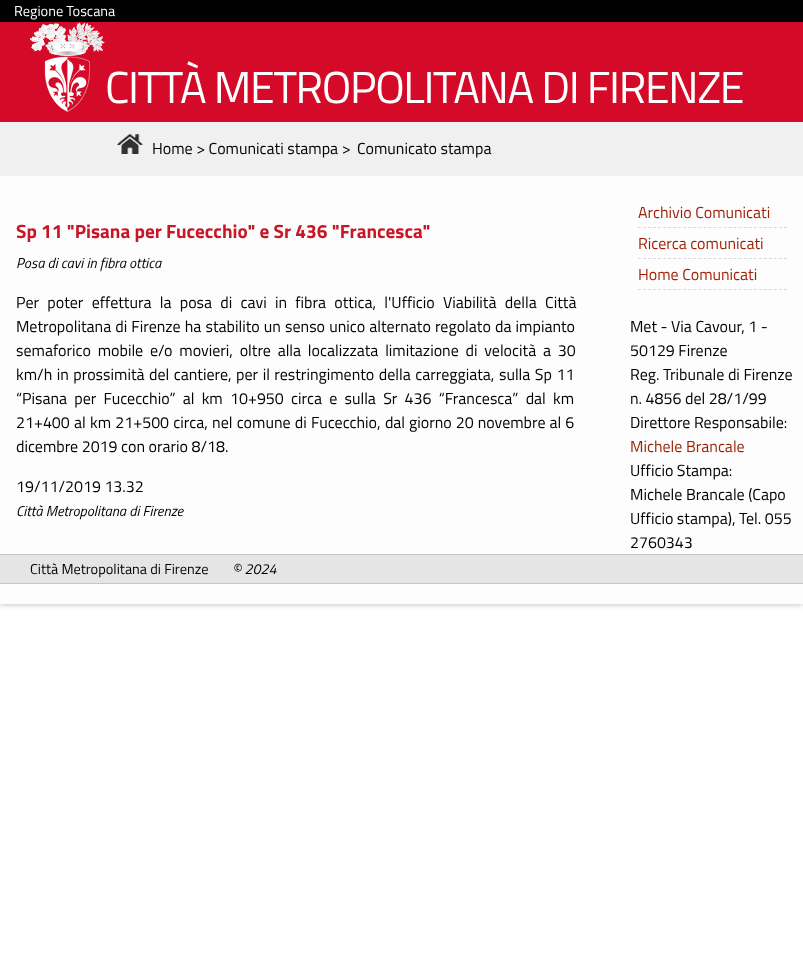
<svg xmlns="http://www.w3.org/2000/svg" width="803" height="978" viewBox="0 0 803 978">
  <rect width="100%" height="100%" fill="#fff"/>
  <path d="M0 0h803v604H0z" fill="#b4b4b4" filter="blur(3px)"/>
  <path d="M0 176h803v428H0z" fill="#fdfdfd"/>
  <path d="M0 22h803v100H0z" fill="#d50a28"/>
  <path d="M0 0h803v22H0z" fill="#000"/>
  <image x="30" y="22" width="75" height="90" href="img/1.png"/>
  <path d="M0 122h803v54H0z" fill="#f0f0f0"/>
  <image x="117" y="134" width="26" height="20" href="img/2.png"/>
  <path d="M638 227.5H787" fill="none" stroke="#d9d9d9" stroke-dasharray="3 2.03"/>
  <path d="M638 258.5H787" fill="none" stroke="#d9d9d9" stroke-dasharray="3 2.03"/>
  <path d="M638 289.5H787" fill="none" stroke="#d9d9d9" stroke-dasharray="3 2.03"/>
  <path d="M0 555h803v28H0z" fill="#e5e5e5"/>
  <path d="M0 554h803v1H0z" fill="#c5c5c5"/>
  <path d="M0 583h803v1H0z" fill="#c5c5c5"/>
  <text x="14" y="16" font-family="Titillium Web" font-size="14.4" fill="#fff">Regione Toscana</text>
  <text x="105" y="103" font-family="Titillium Web" font-size="44.75" letter-spacing="-1.35" fill="#fff">CITTÀ METROPOLITANA DI FIRENZE</text>
  <g font-family="Titillium Web" font-size="16" fill="#000">
    <text x="152" y="154">Home &gt; Comunicati stampa &gt;</text>
    <text x="357" y="154">Comunicato stampa</text>
  </g>
  <text x="16" y="238" font-family="Titillium Web" font-size="19.2" font-weight="bold" fill="#c81627">Sp 11 "Pisana per Fucecchio" e Sr 436 "Francesca"</text>
  <text x="16" y="268" font-family="Titillium Web" font-size="14.4" font-style="italic" fill="#000">Posa di cavi in fibra ottica</text>
  <g font-family="Titillium Web" font-size="16" fill="#000">
    <text x="16" y="308" word-spacing="4.75">Per poter effettura la posa di cavi in fibra ottica, l'Ufficio Viabilità della Città</text>
    <text x="16" y="332" word-spacing="0.6">Metropolitana di Firenze ha stabilito un senso unico alternato regolato da impianto</text>
    <text x="16" y="356" word-spacing="3.25">semaforico mobile e/o movieri, oltre alla localizzata limitazione di velocità a 30</text>
    <text x="16" y="380" word-spacing="1">km/h in prossimità del cantiere, per il restringimento della carreggiata, sulla Sp 11</text>
    <text x="16" y="404" word-spacing="3.75">“Pisana per Fucecchio” al km 10+950 circa e sulla Sr 436 “Francesca” dal km</text>
    <text x="16" y="428" word-spacing="0.75">21+400 al km 21+500 circa, nel comune di Fucecchio, dal</text>
    <text x="409" y="428" word-spacing="0.5">giorno 20 novembre al 6</text>
    <text x="16" y="452">dicembre 2019 con orario 8/18.</text>
    <text x="16" y="492">19/11/2019 13.32</text>
  </g>
  <text x="16" y="516" font-family="Titillium Web" font-size="14.4" font-style="italic" fill="#000">Città Metropolitana di Firenze</text>
  <g font-family="Titillium Web" font-size="16" fill="#9e1f03">
    <text x="638" y="218">Archivio Comunicati</text>
    <text x="638" y="249">Ricerca comunicati</text>
    <text x="638" y="280">Home Comunicati</text>
  </g>
  <g font-family="Titillium Web" font-size="16" fill="#000">
    <text x="630" y="332">Met - Via Cavour, 1 -</text>
    <text x="630" y="356">50129 Firenze</text>
    <text x="630" y="380">Reg. Tribunale di Firenze</text>
    <text x="630" y="404">n. 4856 del 28/1/99</text>
    <text x="630" y="428">Direttore Responsabile:</text>
  </g>
  <text x="630" y="452" font-family="Titillium Web" font-size="16" fill="#9e1f03">Michele Brancale</text>
  <g font-family="Titillium Web" font-size="16" fill="#000">
    <text x="630" y="476">Ufficio Stampa:</text>
    <text x="630" y="500">Michele Brancale (Capo</text>
    <text x="630" y="524">Ufficio stampa), Tel. 055</text>
    <text x="630" y="548">2760343</text>
  </g>
  <text x="30" y="574" font-family="Titillium Web" font-size="14.4" fill="#000">Città Metropolitana di Firenze</text>
  <text x="232" y="574" font-family="Titillium Web" font-size="14.4" font-style="italic" fill="#000">© 2024</text>
</svg>
